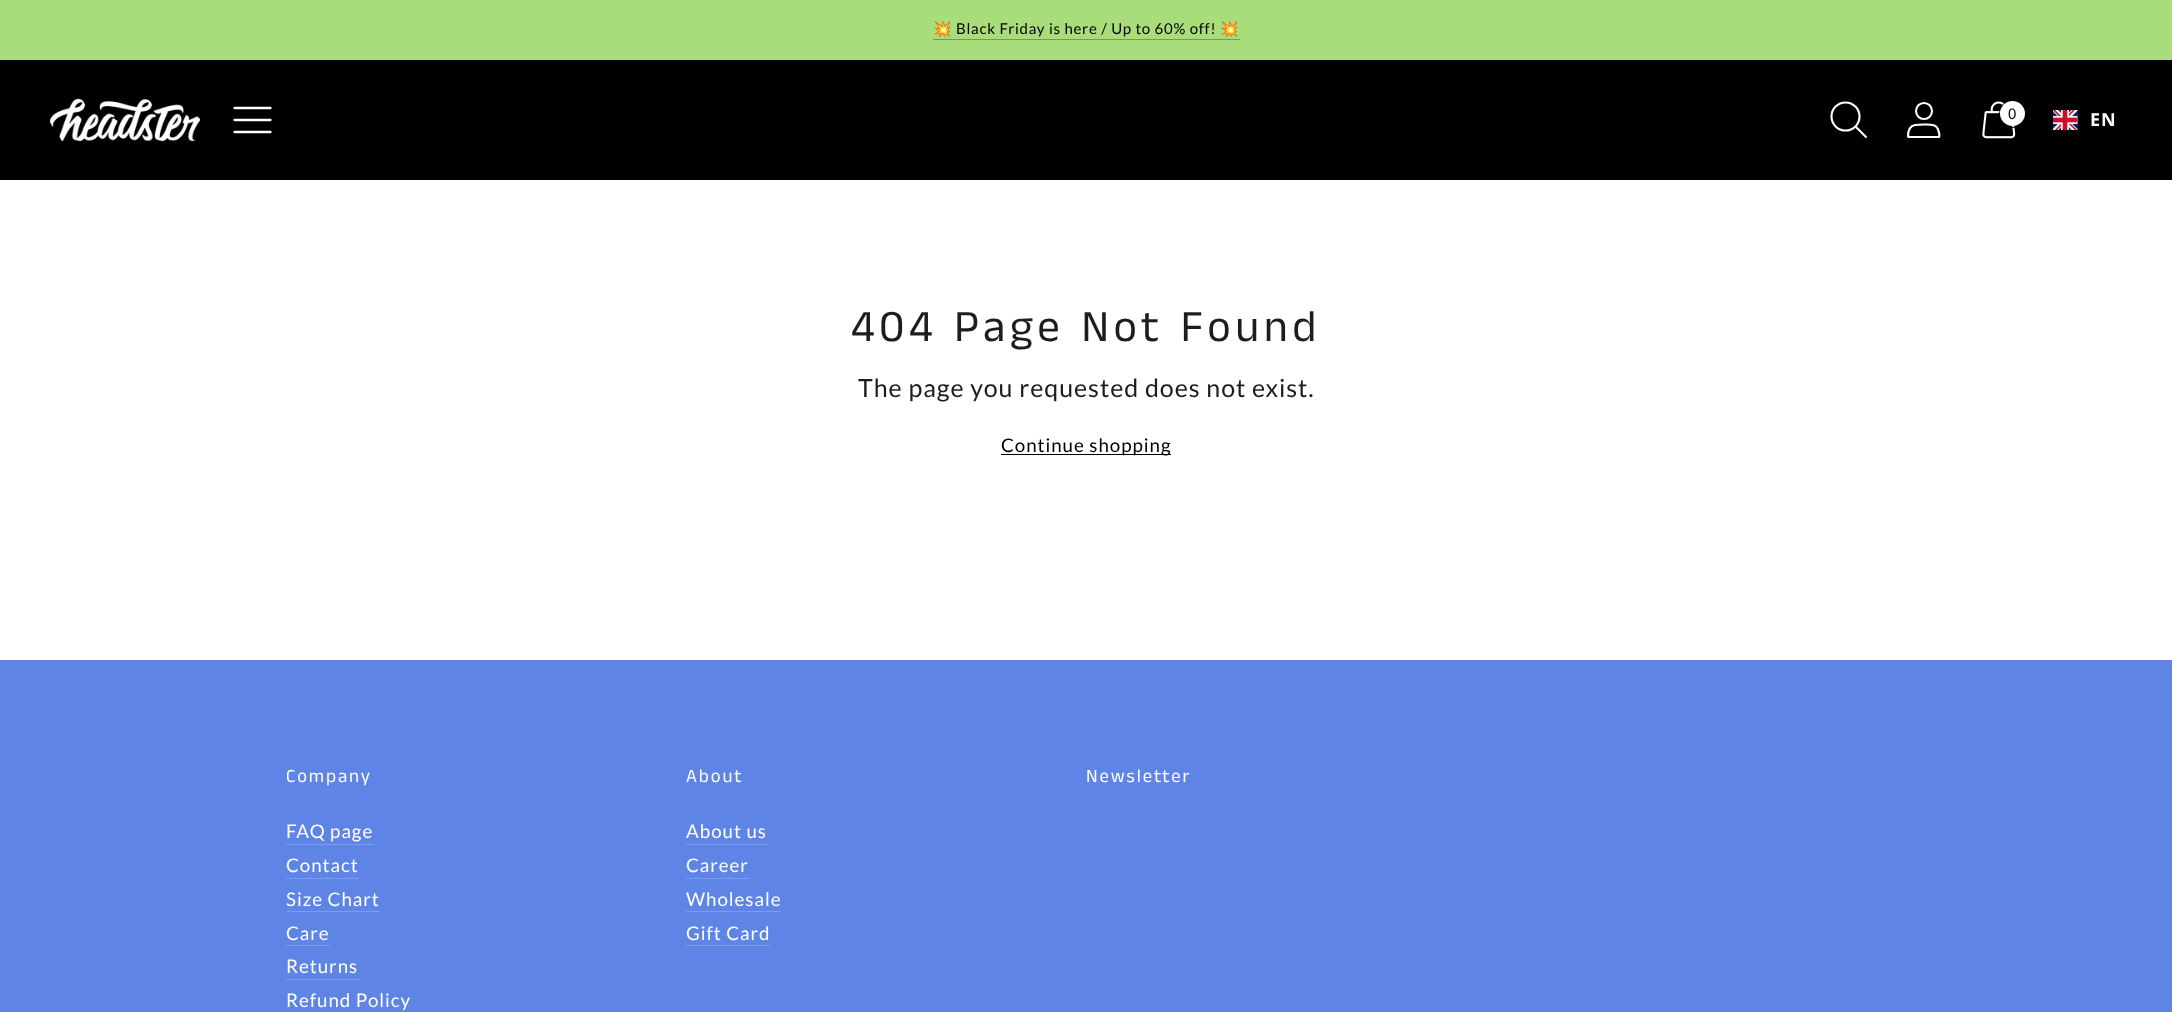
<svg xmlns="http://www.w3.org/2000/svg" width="2172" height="1012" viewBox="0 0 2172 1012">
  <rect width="100%" height="100%" fill="#fff"/>
  <path d="M0 0h2172v60H0z" fill="#a9dd7c"/>
  <path d="M933 39h307v1H933z" fill="#769b57"/>
  <path d="M0 60h2172v120H0z" fill="#000"/>
  <image x="50" y="98" width="150" height="44" href="img/1.png"/>
  <path d="M234.5 120H270.5M234.5 108H270.5M234.5 132H270.5" fill="none" stroke="#fff" stroke-width="2.3" stroke-linecap="round" stroke-linejoin="round"/>
  <circle cx="1845.5" cy="116.5" r="14" fill="none" stroke="#fff" stroke-width="2.1"/>
  <path d="M1856 127L1866 137" fill="none" stroke="#fff" stroke-width="2.1" stroke-linecap="round" stroke-linejoin="round"/>
  <circle cx="1924" cy="111" r="8" fill="none" stroke="#fff" stroke-width="2.1"/>
  <path d="M1939 137C1940 137 1939 132 1938.5 131C1937 123.5 1930 124.5 1923.5 124.5L1915 125C1909.5 126 1908 132 1908 136.5L1908.5 137Z" fill="none" stroke="#fff" stroke-width="2.1" stroke-linecap="round" stroke-linejoin="round"/>
  <image x="1982" y="101" width="34" height="38" href="img/2.png"/>
  <rect x="1999.5" y="100.5" width="26" height="27" rx="13" fill="none" stroke="#000"/>
  <circle cx="2012.5" cy="113.5" r="12.5" fill="#fff"/>
  <image x="2053" y="110" width="25" height="20" href="img/3.png"/>
  <path d="M1001 454h170v1H1001z" fill="#000"/>
  <path d="M0 660h2172v352H0z" fill="#5e85e5"/>
  <path d="M286 844h88v1H286z" fill="#7e9dea"/>
  <path d="M286 878h73v1H286z" fill="#7e9dea"/>
  <path d="M286 911h94v1H286z" fill="#7e9dea"/>
  <path d="M286 945h44v1H286z" fill="#7e9dea"/>
  <path d="M286 979h73v1H286z" fill="#7e9dea"/>
  <path d="M686 844h82v1H686z" fill="#7e9dea"/>
  <path d="M686 878h63v1H686z" fill="#7e9dea"/>
  <path d="M686 911h95v1H686z" fill="#7e9dea"/>
  <path d="M686 945h84v1H686z" fill="#7e9dea"/>
  <text x="933" y="34" font-family="Noto Color Emoji" font-size="15" letter-spacing="0.75" fill="#000">💥</text>
  <text x="956" y="34" font-family="Lato" font-size="15" letter-spacing="0.75" fill="#000">Black Friday is here / Up to 60% off!</text>
  <text x="1220" y="34" font-family="Noto Color Emoji" font-size="15" letter-spacing="0.75" fill="#000">💥</text>
  <text x="2008" y="119" font-family="Liberation Sans" font-size="15" letter-spacing="0.95" fill="#000">0</text>
  <text x="2090" y="126" font-family="Noto Sans" font-size="18" font-weight="bold" letter-spacing="0.95" fill="#fff">EN</text>
  <text x="851" y="341" font-family="Anek Tamil" font-size="45" letter-spacing="4.5" fill="#1d1d1d">404 Page Not Found</text>
  <text x="858" y="397" font-family="Lato" font-size="25" letter-spacing="0.95" fill="#1d1d1d">The page you requested does not exist.</text>
  <text x="1001" y="452" font-family="Lato" font-size="18.75" letter-spacing="0.95" fill="#000">Continue shopping</text>
  <text x="286" y="782" font-family="Anek Tamil" font-size="18.75" letter-spacing="1.9" fill="#fff">Company</text>
  <g font-family="Lato" font-size="18.75" letter-spacing="0.95" fill="#fff">
    <text x="286" y="838">FAQ page</text>
    <text x="286" y="872">Contact</text>
    <text x="286" y="906">Size Chart</text>
    <text x="286" y="940">Care</text>
    <text x="286" y="973">Returns</text>
    <text x="286" y="1007">Refund Policy</text>
  </g>
  <text x="686" y="782" font-family="Anek Tamil" font-size="18.75" letter-spacing="1.9" fill="#fff">About</text>
  <g font-family="Lato" font-size="18.75" letter-spacing="0.95" fill="#fff">
    <text x="686" y="838">About us</text>
    <text x="686" y="872">Career</text>
    <text x="686" y="906">Wholesale</text>
    <text x="686" y="940">Gift Card</text>
  </g>
  <text x="1086" y="782" font-family="Anek Tamil" font-size="18.75" letter-spacing="1.9" fill="#fff">Newsletter</text>
</svg>
